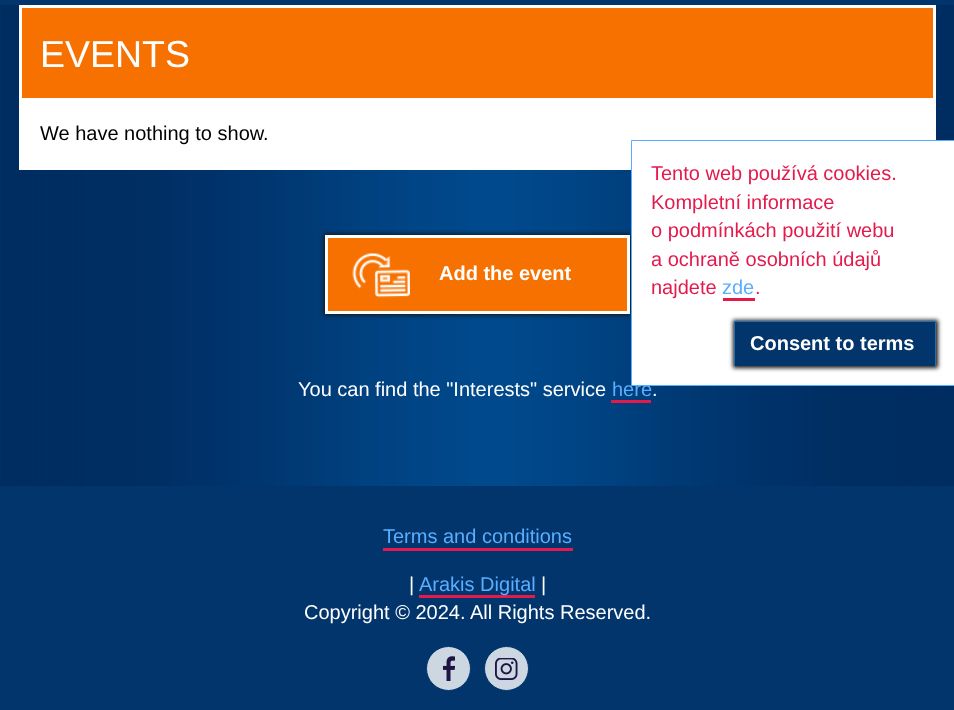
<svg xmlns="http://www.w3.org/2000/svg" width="954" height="710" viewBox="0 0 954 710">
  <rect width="100%" height="100%" fill="#fff"/>
  <path d="M0 0h954v5H0z" fill="#01356c"/>
  <image x="0" y="5" width="954" height="481" href="img/1.png"/>
  <path d="M20.5 6.5h914v93H20.5z" fill="#f77100" stroke="#fff" stroke-width="3"/>
  <path d="M19 101h917v69H19z" fill="#fff"/>
  <path d="M324 234h307v81H324z" fill="#151515" filter="blur(2px)"/>
  <path d="M328 238h299v73H328z" fill="#f77100"/>
  <image x="352" y="252" width="58" height="46" href="img/2.png"/>
  <path d="M326.5 236.5h302v76H326.5z" fill="none" stroke="#fff" stroke-width="3"/>
  <path d="M611 400h40v3H611z" fill="#e4194c"/>
  <path d="M0 486h954v224H0z" fill="#02356c"/>
  <path d="M383 548h190v3H383z" fill="#e4194c"/>
  <path d="M419 595h116v3H419z" fill="#e4194c"/>
  <circle cx="448.5" cy="668.5" r="22" fill="#ccd7e2" stroke="#02356c"/>
  <image x="443" y="656" width="12" height="25" href="img/3.png"/>
  <circle cx="506.5" cy="668.5" r="22" fill="#ccd7e2" stroke="#02356c"/>
  <image x="495" y="658" width="23" height="22" href="img/4.png"/>
  <text x="40" y="67" font-family="Liberation Sans" font-size="37.5" fill="#fff">EVENTS</text>
  <text x="40" y="140" font-family="Liberation Sans" font-size="20" fill="#000">We have nothing to show.</text>
  <text x="439" y="280" font-family="Liberation Sans" font-size="20" font-weight="bold" fill="#fff">Add the event</text>
  <text x="298" y="396" font-family="Liberation Sans" font-size="20" fill="#fff">You can find the "Interests" service</text>
  <text x="612" y="396" font-family="Liberation Sans" font-size="20" fill="#59aeff">here</text>
  <text x="652" y="396" font-family="Liberation Sans" font-size="20" fill="#fff">.</text>
  <path d="M631.5 140.5h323v245H631.5z" fill="#fff" stroke="#59aeff"/>
  <g font-family="Liberation Sans" font-size="20" fill="#e4194c">
    <text x="651" y="180">Tento web používá cookies.</text>
    <text x="651" y="209">Kompletní informace</text>
    <text x="651" y="237">o podmínkách použití webu</text>
    <text x="651" y="266">a ochraně osobních údajů</text>
    <text x="651" y="294">najdete</text>
  </g>
  <text x="722" y="294" font-family="Liberation Sans" font-size="20" fill="#59aeff">zde</text>
  <path d="M723 298h32v3H723z" fill="#e4194c"/>
  <text x="755" y="294" font-family="Liberation Sans" font-size="20" fill="#e4194c">.</text>
  <path d="M733 320h205v48H733z" fill="#151515" filter="blur(2px)"/>
  <path d="M735 322h200v44H735z" fill="#02356c"/>
  <path d="M734 321h202v1H734z" fill="#2e6da4"/>
  <path d="M935 321h1v45H935z" fill="#2e6da4"/>
  <path d="M734 321h1v45H734z" fill="#2e6da4"/>
  <text x="750" y="350" font-family="Liberation Sans" font-size="20" font-weight="bold" fill="#fff">Consent to terms</text>
  <text x="383" y="543" font-family="Liberation Sans" font-size="20" fill="#59aeff">Terms and conditions</text>
  <text x="409" y="591" font-family="Liberation Sans" font-size="20" fill="#fff">|</text>
  <text x="419" y="591" font-family="Liberation Sans" font-size="20" fill="#59aeff">Arakis Digital</text>
  <g font-family="Liberation Sans" font-size="20" fill="#fff">
    <text x="541" y="591">|</text>
    <text x="304" y="619">Copyright © 2024. All Rights Reserved.</text>
  </g>
</svg>
